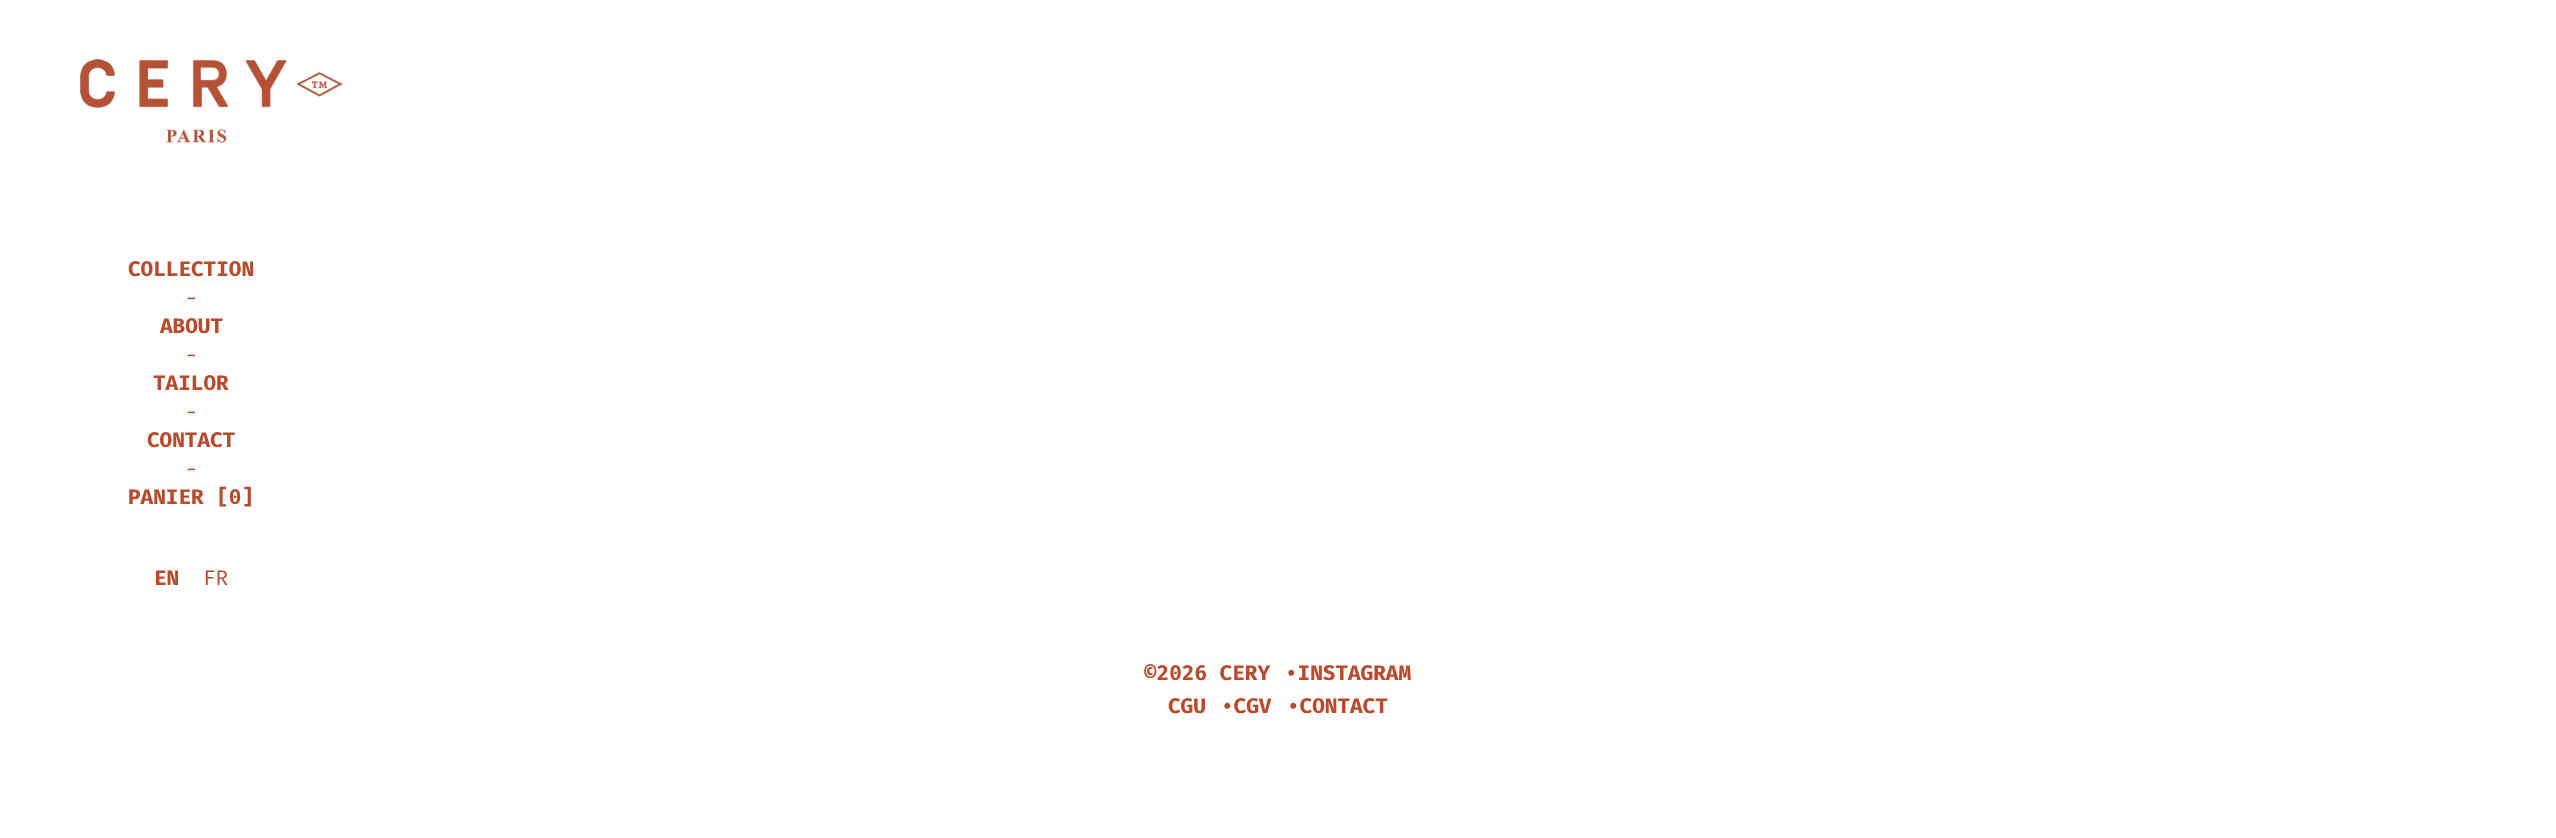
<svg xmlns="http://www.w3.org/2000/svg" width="2556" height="838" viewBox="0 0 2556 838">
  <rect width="100%" height="100%" fill="#fff"/>
  <image x="80" y="59" width="263" height="84" href="img/1.png"/>
  <text x="128" y="276" font-family="Fira Mono" font-size="21" font-weight="bold" fill="#b74b2c">COLLECTION</text>
  <text x="185" y="305" font-family="Fira Mono" font-size="21" fill="#b74b2c">-</text>
  <text x="160" y="333" font-family="Fira Mono" font-size="21" font-weight="bold" fill="#b74b2c">ABOUT</text>
  <text x="185" y="362" font-family="Fira Mono" font-size="21" fill="#b74b2c">-</text>
  <text x="153" y="390" font-family="Fira Mono" font-size="21" font-weight="bold" fill="#b74b2c">TAILOR</text>
  <text x="185" y="419" font-family="Fira Mono" font-size="21" fill="#b74b2c">-</text>
  <text x="147" y="447" font-family="Fira Mono" font-size="21" font-weight="bold" fill="#b74b2c">CONTACT</text>
  <text x="185" y="476" font-family="Fira Mono" font-size="21" fill="#b74b2c">-</text>
  <g font-family="Fira Mono" font-size="21" font-weight="bold" fill="#b74b2c">
    <text x="128" y="504">PANIER [0]</text>
    <text x="154" y="585">EN</text>
  </g>
  <text x="203" y="585" font-family="Fira Mono" font-size="21" fill="#b74b2c">FR</text>
  <g font-family="Fira Mono" font-size="21" font-weight="bold" fill="#b74b2c">
    <text x="1144" y="680">©2026 CERY</text>
    <text x="1285" y="680">•INSTAGRAM</text>
    <text x="1168" y="713">CGU</text>
    <text x="1221" y="713">•CGV</text>
    <text x="1287" y="713">•CONTACT</text>
  </g>
</svg>
